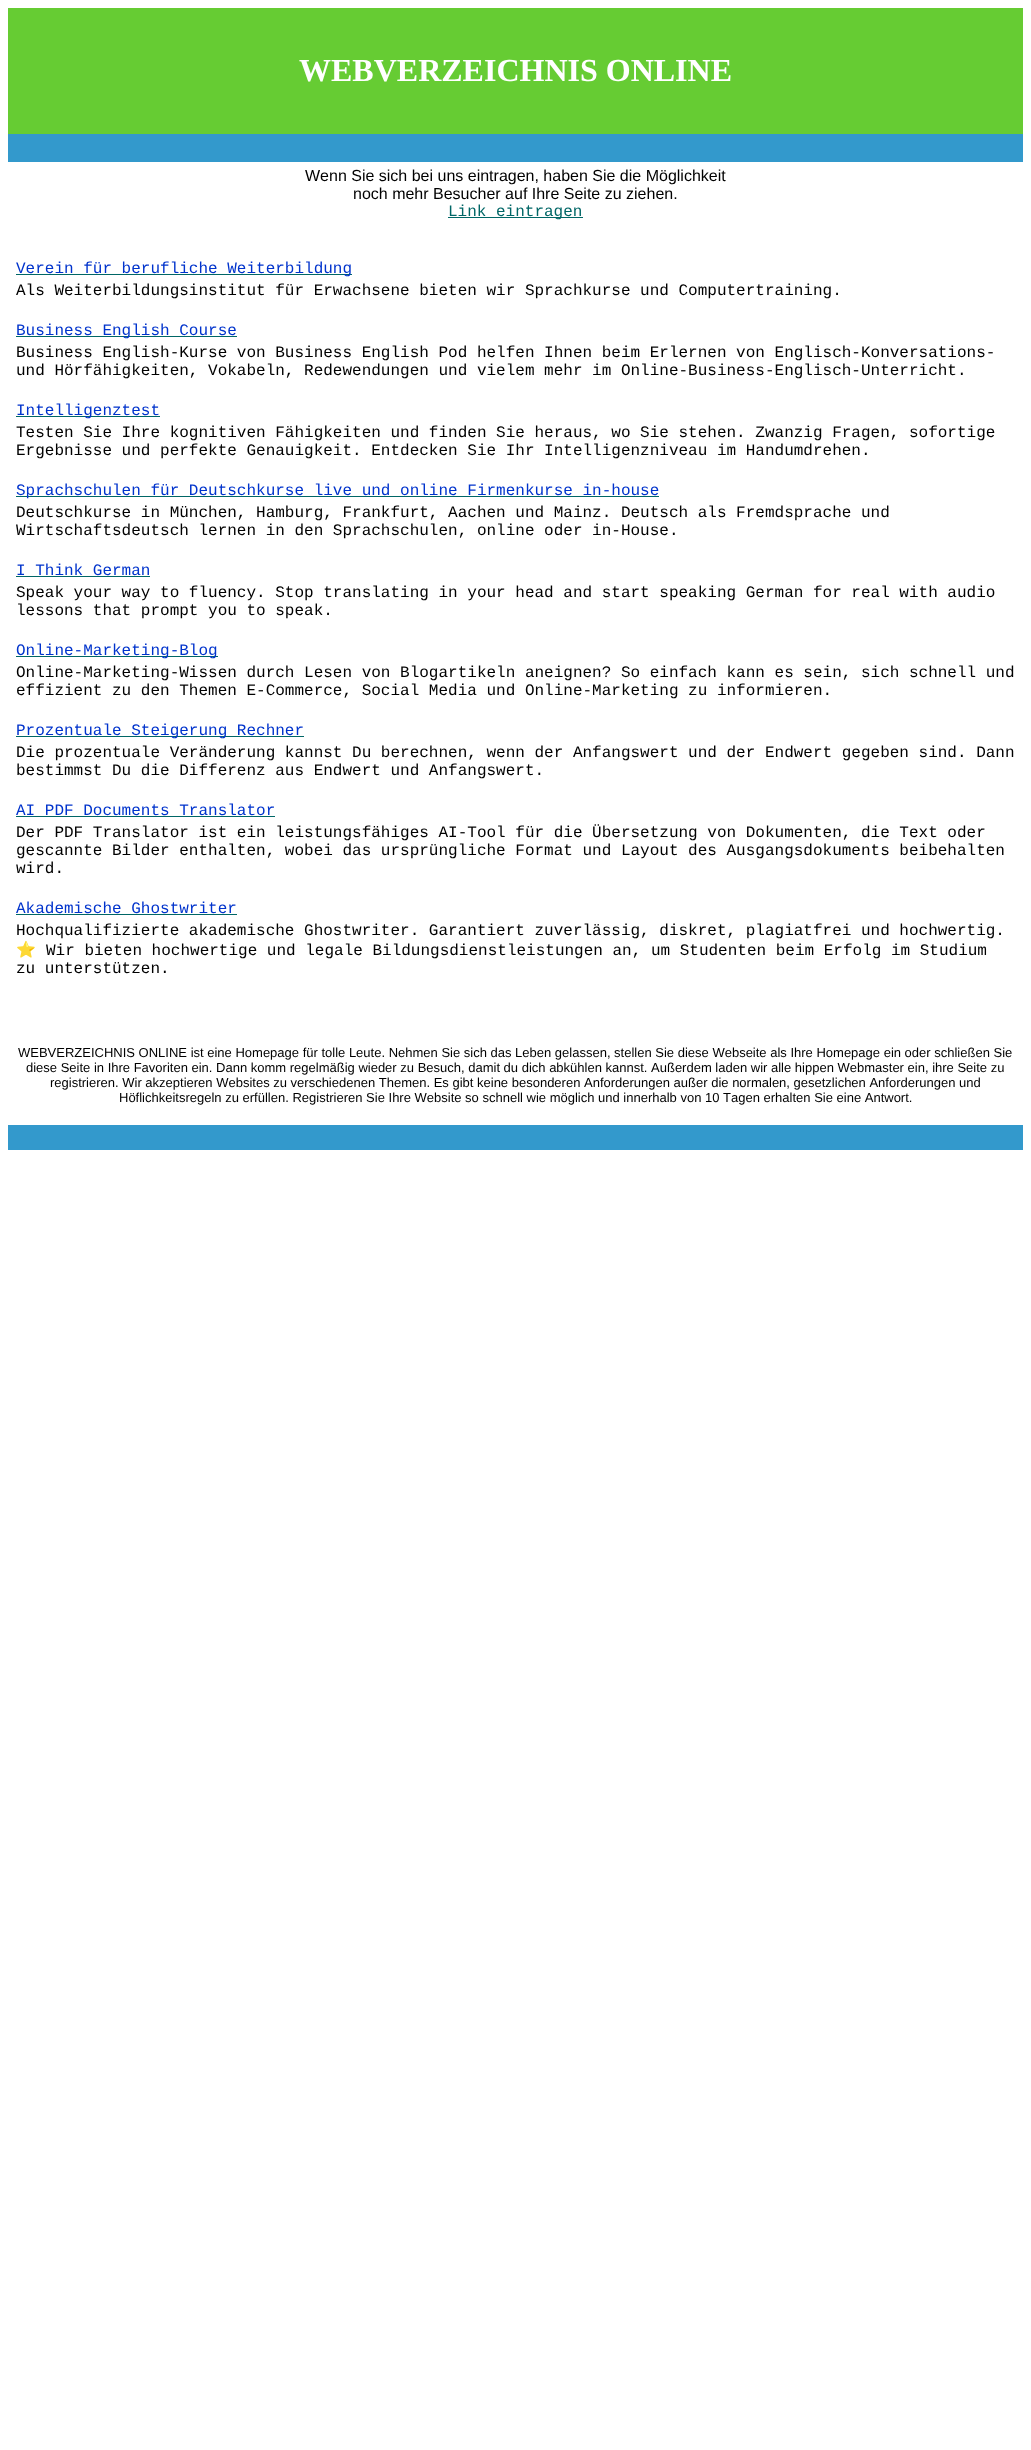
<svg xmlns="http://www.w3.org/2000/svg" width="1031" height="2450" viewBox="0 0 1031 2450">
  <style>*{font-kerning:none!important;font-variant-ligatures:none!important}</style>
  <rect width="100%" height="100%" fill="#fff"/>
  <path d="M8 8h1015v126H8z" fill="#6c3"/>
  <path d="M8 134h1015v28H8z" fill="#39c"/>
  <path d="M448 217h135v1H448z" fill="#066"/>
  <path d="M16 274h336v1H16z" fill="#066"/>
  <path d="M16 336h221v1H16z" fill="#066"/>
  <path d="M16 416h144v1H16z" fill="#066"/>
  <path d="M16 496h643v1H16z" fill="#066"/>
  <path d="M16 576h134v1H16z" fill="#066"/>
  <path d="M16 656h202v1H16z" fill="#066"/>
  <path d="M16 736h288v1H16z" fill="#066"/>
  <path d="M16 816h259v1H16z" fill="#066"/>
  <path d="M16 914h221v1H16z" fill="#066"/>
  <path d="M8 1125h1015v25H8z" fill="#39c"/>
  <text x="299" y="81" font-family="Liberation Serif" font-size="32" font-weight="bold" fill="#fff">WEBVERZEICHNIS ONLINE</text>
  <g font-family="Liberation Sans" font-size="16" fill="#000">
    <text x="305" y="181">Wenn Sie sich bei uns eintragen, haben Sie die Möglichkeit</text>
    <text x="353" y="199">noch mehr Besucher auf Ihre Seite zu ziehen.</text>
  </g>
  <text x="448" y="216" font-family="Liberation Mono" font-size="16" fill="#066">Link eintragen</text>
  <text x="16" y="273" font-family="Liberation Mono" font-size="16" fill="#03c">Verein für berufliche Weiterbildung</text>
  <text x="16" y="295" font-family="Liberation Mono" font-size="16" fill="#000">Als Weiterbildungsinstitut für Erwachsene bieten wir Sprachkurse und Computertraining.</text>
  <text x="16" y="335" font-family="Liberation Mono" font-size="16" fill="#03c">Business English Course</text>
  <g font-family="Liberation Mono" font-size="16" fill="#000">
    <text x="16" y="357">Business English-Kurse von Business English Pod helfen Ihnen beim Erlernen von Englisch-Konversations-</text>
    <text x="16" y="375">und Hörfähigkeiten, Vokabeln, Redewendungen und vielem mehr im Online-Business-Englisch-Unterricht.</text>
  </g>
  <text x="16" y="415" font-family="Liberation Mono" font-size="16" fill="#03c">Intelligenztest</text>
  <g font-family="Liberation Mono" font-size="16" fill="#000">
    <text x="16" y="437">Testen Sie Ihre kognitiven Fähigkeiten und finden Sie heraus, wo Sie stehen. Zwanzig Fragen, sofortige</text>
    <text x="16" y="455">Ergebnisse und perfekte Genauigkeit. Entdecken Sie Ihr Intelligenzniveau im Handumdrehen.</text>
  </g>
  <text x="16" y="495" font-family="Liberation Mono" font-size="16" fill="#03c">Sprachschulen für Deutschkurse live und online Firmenkurse in-house</text>
  <g font-family="Liberation Mono" font-size="16" fill="#000">
    <text x="16" y="517">Deutschkurse in München, Hamburg, Frankfurt, Aachen und Mainz. Deutsch als Fremdsprache und</text>
    <text x="16" y="535">Wirtschaftsdeutsch lernen in den Sprachschulen, online oder in-House.</text>
  </g>
  <text x="16" y="575" font-family="Liberation Mono" font-size="16" fill="#03c">I Think German</text>
  <g font-family="Liberation Mono" font-size="16" fill="#000">
    <text x="16" y="597">Speak your way to fluency. Stop translating in your head and start speaking German for real with audio</text>
    <text x="16" y="615">lessons that prompt you to speak.</text>
  </g>
  <text x="16" y="655" font-family="Liberation Mono" font-size="16" fill="#03c">Online-Marketing-Blog</text>
  <g font-family="Liberation Mono" font-size="16" fill="#000">
    <text x="16" y="677">Online-Marketing-Wissen durch Lesen von Blogartikeln aneignen? So einfach kann es sein, sich schnell und</text>
    <text x="16" y="695">effizient zu den Themen E-Commerce, Social Media und Online-Marketing zu informieren.</text>
  </g>
  <text x="16" y="735" font-family="Liberation Mono" font-size="16" fill="#03c">Prozentuale Steigerung Rechner</text>
  <g font-family="Liberation Mono" font-size="16" fill="#000">
    <text x="16" y="757">Die prozentuale Veränderung kannst Du berechnen, wenn der Anfangswert und der Endwert gegeben sind. Dann</text>
    <text x="16" y="775">bestimmst Du die Differenz aus Endwert und Anfangswert.</text>
  </g>
  <text x="16" y="815" font-family="Liberation Mono" font-size="16" fill="#03c">AI PDF Documents Translator</text>
  <g font-family="Liberation Mono" font-size="16" fill="#000">
    <text x="16" y="837">Der PDF Translator ist ein leistungsfähiges AI-Tool für die Übersetzung von Dokumenten, die Text oder</text>
    <text x="16" y="855">gescannte Bilder enthalten, wobei das ursprüngliche Format und Layout des Ausgangsdokuments beibehalten</text>
    <text x="16" y="873">wird.</text>
  </g>
  <text x="16" y="913" font-family="Liberation Mono" font-size="16" fill="#03c">Akademische Ghostwriter</text>
  <text x="16" y="935" font-family="Liberation Mono" font-size="16" fill="#000">Hochqualifizierte akademische Ghostwriter. Garantiert zuverlässig, diskret, plagiatfrei und hochwertig.</text>
  <text x="16" y="955" font-family="Noto Color Emoji" font-size="16" fill="#000">⭐</text>
  <g font-family="Liberation Mono" font-size="16" fill="#000">
    <text x="46" y="955">Wir bieten hochwertige und legale Bildungsdienstleistungen an, um Studenten beim Erfolg im Studium</text>
    <text x="16" y="973">zu unterstützen.</text>
  </g>
  <g font-family="Liberation Sans" font-size="13" fill="#000">
    <text x="18" y="1057">WEBVERZEICHNIS ONLINE ist eine Homepage für tolle Leute. Nehmen Sie sich das Leben gelassen, stellen Sie diese Webseite als Ihre Homepage ein oder schließen Sie</text>
    <text x="26" y="1072">diese Seite in Ihre Favoriten ein. Dann komm regelmäßig wieder zu Besuch, damit du dich abkühlen kannst. Außerdem laden wir alle hippen Webmaster ein, ihre Seite zu</text>
    <text x="50" y="1087">registrieren. Wir akzeptieren Websites zu verschiedenen Themen. Es gibt keine besonderen Anforderungen außer die normalen, gesetzlichen Anforderungen und</text>
    <text x="119" y="1102">Höflichkeitsregeln zu erfüllen. Registrieren Sie Ihre Website so schnell wie möglich und innerhalb von 10 Tagen erhalten Sie eine Antwort.</text>
  </g>
</svg>
